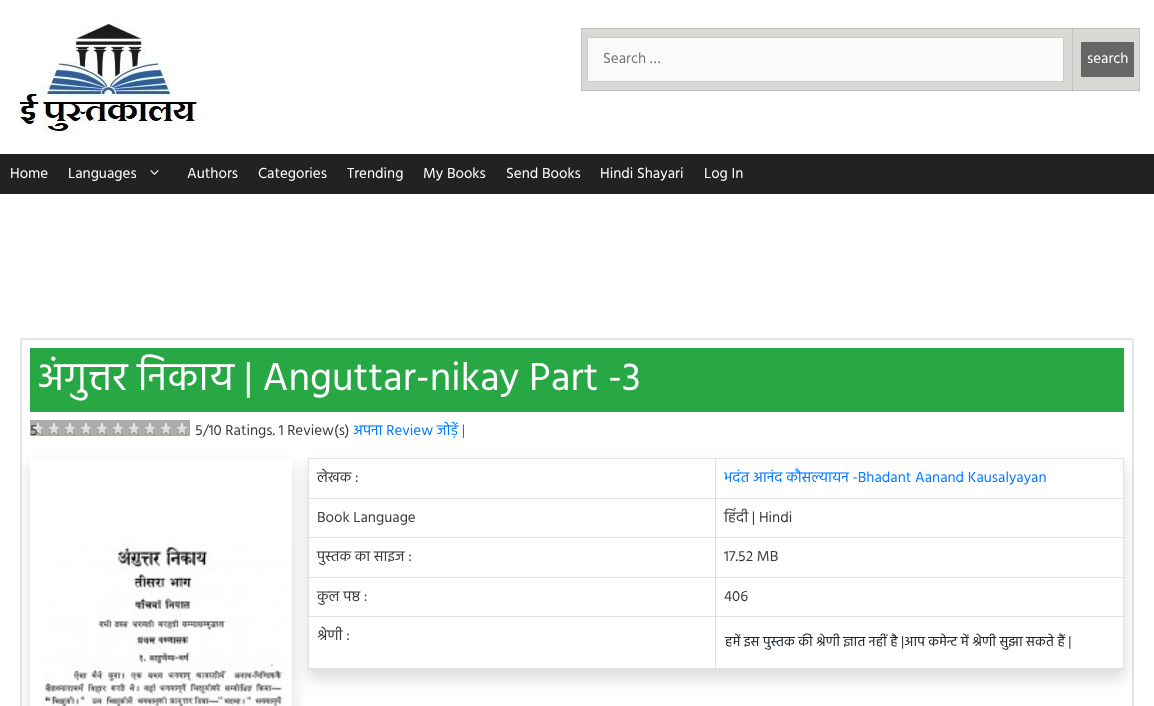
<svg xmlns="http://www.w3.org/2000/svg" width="1154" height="706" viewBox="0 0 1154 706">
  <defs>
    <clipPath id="clip1"><path d="M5 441H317V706H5ZM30 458H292V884H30Z" clip-rule="evenodd"/></clipPath>
    <clipPath id="clip2"><path d="M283 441H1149V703H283ZM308 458H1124V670H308Z" clip-rule="evenodd"/></clipPath>
  </defs>
  <rect width="100%" height="100%" fill="#222"/>
  <path d="M0 0h1154v154H0z" fill="#fff"/>
  <image x="18" y="20" width="184" height="114" href="img/1.png"/>
  <path d="M582 29h557v61H582z" fill="#d8d8d4"/>
  <path d="M581 90h492v1H581z" fill="#c2c2bf"/>
  <path d="M1072 28h1v63H1072z" fill="#c2c2bf"/>
  <path d="M1072 90h68v1H1072z" fill="#c2c2bf"/>
  <path d="M1072 90h1v1H1072z" fill="#9e9e9b"/>
  <path d="M1139 28h1v63H1139z" fill="#c2c2bf"/>
  <path d="M1139 90h1v1H1139z" fill="#afafac"/>
  <path d="M581 28h1v63H581z" fill="#c2c2bf"/>
  <path d="M581 90h1v1H581z" fill="#afafac"/>
  <path d="M581 28h559v1H581z" fill="#c2c2bf"/>
  <path d="M1072 28h1v1H1072z" fill="#afafac"/>
  <path d="M1139 28h1v1H1139z" fill="#afafac"/>
  <path d="M581 28h1v1H581z" fill="#afafac"/>
  <path d="M587.5 37.5h476v44H587.5z" fill="#fafafa" stroke="#ccc"/>
  <path d="M1081 42h53v35H1081z" fill="#666"/>
  <image x="150" y="170" width="9" height="5" href="img/2.png"/>
  <path d="M0 194h1154v512H0z" fill="#fff"/>
  <path d="M20.5 338.5h1113v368H20.5z" fill="none" stroke="#efe9e9"/>
  <path d="M21.5 339.5h1111v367H21.5z" fill="none" stroke="#dee2e6"/>
  <path d="M30 348h1094v64H30z" fill="#28a745"/>
  <image x="30" y="420" width="160" height="16" href="img/3.png"/>
  <g clip-path="url(#clip1)">
    <path d="M30 466h262v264H30z" fill="#00000026" filter="blur(8px)"/>
  </g>
  <image x="42" y="539" width="248" height="167" href="img/4.png"/>
  <g clip-path="url(#clip2)">
    <path d="M308 466h816v212H308z" fill="#00000026" filter="blur(8px)"/>
  </g>
  <path d="M308.5 458.5h815v211H308.5z" fill="none" stroke="#dee2e6"/>
  <path d="M715 459h1v210H715z" fill="#dee2e6"/>
  <path d="M309 498h814v1H309z" fill="#dee2e6"/>
  <path d="M309 537h814v1H309z" fill="#dee2e6"/>
  <path d="M309 577h814v1H309z" fill="#dee2e6"/>
  <path d="M309 616h814v1H309z" fill="#dee2e6"/>
  <path d="M309 668h814v1H309z" fill="#dee2e6"/>
  <text x="603" y="63" font-family="Hind" font-size="15" fill="#757575">Search …</text>
  <g font-family="Hind" font-size="15" fill="#fff">
    <text x="1087" y="63">search</text>
    <text x="10" y="178">Home</text>
    <text x="68" y="178">Languages</text>
    <text x="187" y="178">Authors</text>
    <text x="258" y="178">Categories</text>
    <text x="347" y="178">Trending</text>
    <text x="423" y="178">My Books</text>
    <text x="506" y="178">Send Books</text>
    <text x="600" y="178">Hindi Shayari</text>
    <text x="704" y="178">Log In</text>
  </g>
  <text x="38" y="390" font-family="Hind" font-size="40" fill="#fff">अंगुत्तर निकाय | Anguttar-nikay Part -3</text>
  <g font-family="Hind" font-size="15" fill="#3a3a3a">
    <text x="30" y="435">5</text>
    <text x="195" y="435">5/10 Ratings. 1 Review(s)</text>
  </g>
  <text x="353" y="435" font-family="Hind" font-size="15" fill="#007bff">अपना Review जोड़ें |</text>
  <text x="317" y="482" font-family="Hind" font-size="15" fill="#3a3a3a">लेखक :</text>
  <text x="724" y="482" font-family="Hind" font-size="15" fill="#007bff">भदंत आनंद कौसल्यायन -Bhadant Aanand Kausalyayan</text>
  <g font-family="Hind" font-size="15" fill="#3a3a3a">
    <text x="317" y="522">Book Language</text>
    <text x="724" y="522">हिंदी | Hindi</text>
    <text x="317" y="561">पुस्तक का साइज :</text>
    <text x="724" y="561">17.52 MB</text>
    <text x="317" y="601">कुल पष्ठ :</text>
    <text x="724" y="601">406</text>
    <text x="317" y="640">श्रेणी :</text>
  </g>
  <text x="725" y="646" font-family="Hind" font-size="14" fill="#212529">हमें इस पुस्तक की श्रेणी ज्ञात नहीं है |आप कमेन्ट में श्रेणी सुझा सकते हैं |</text>
</svg>
